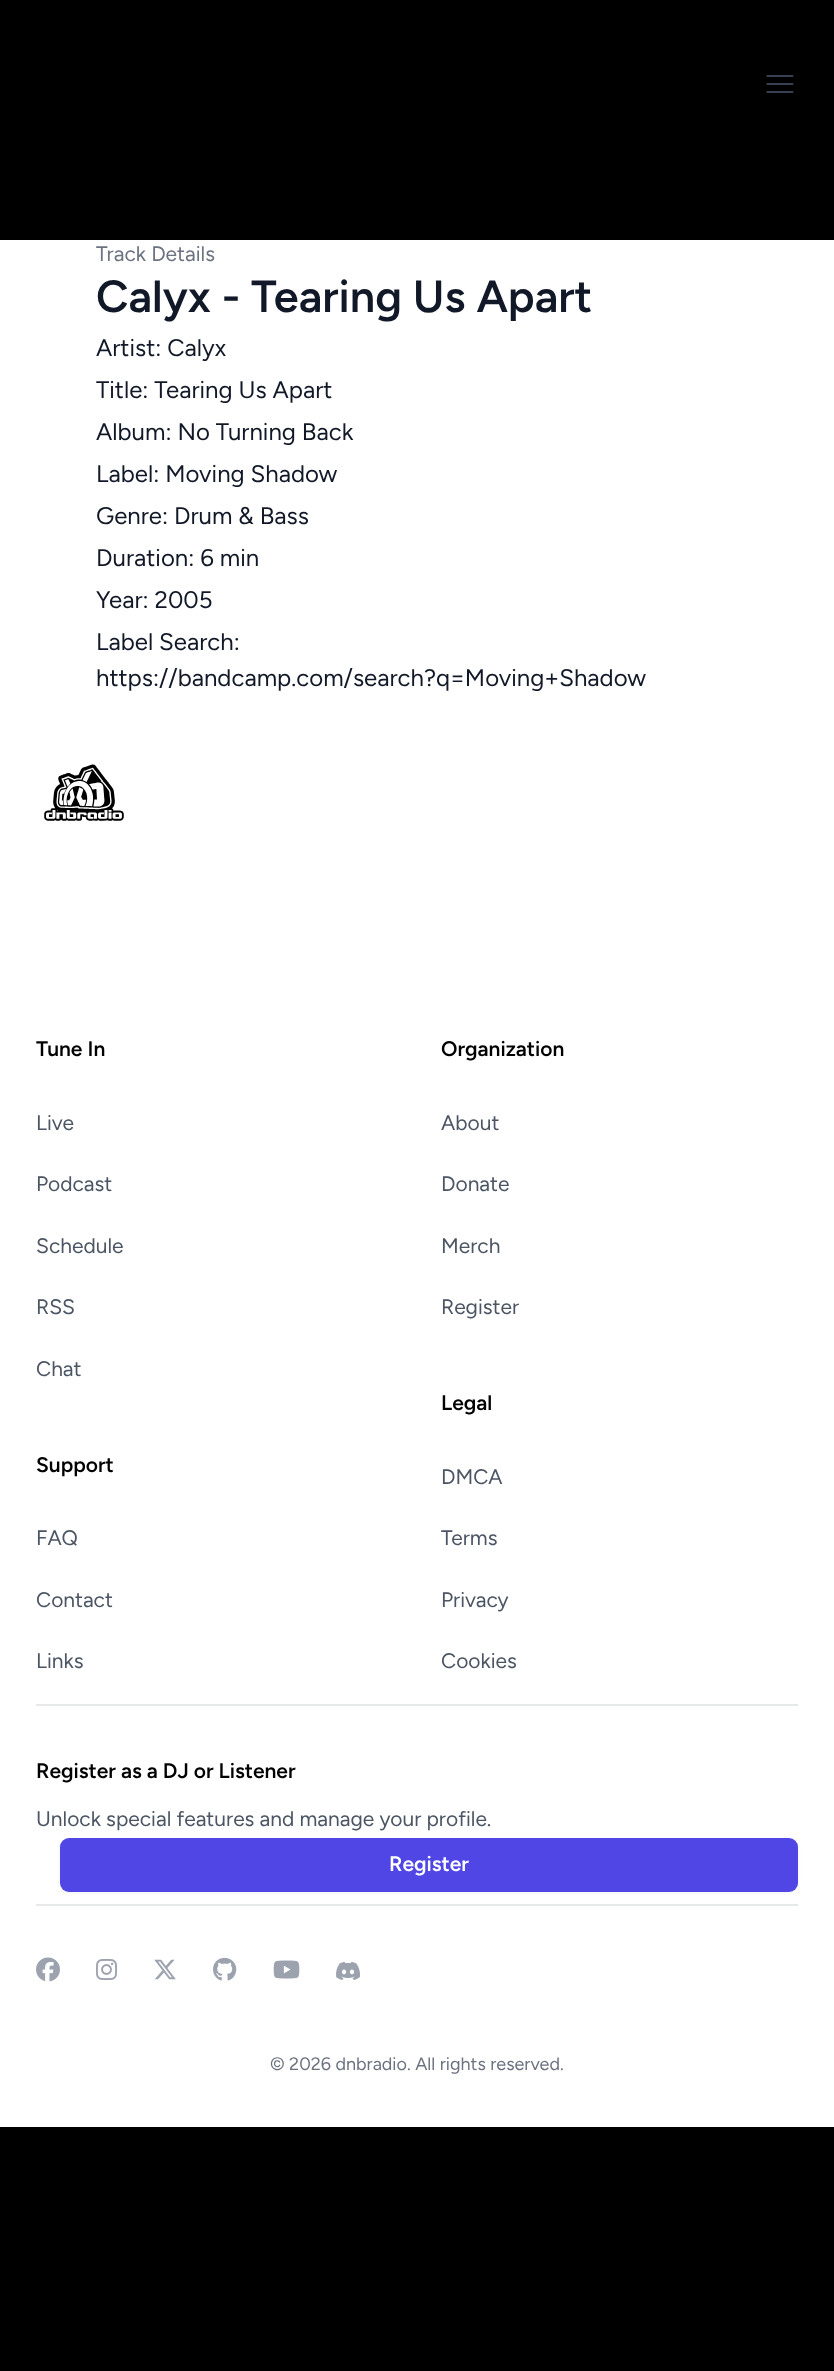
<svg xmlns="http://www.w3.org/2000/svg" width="834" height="2371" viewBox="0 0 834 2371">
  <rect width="100%" height="100%" fill="#000"/>
  <path d="M0 240h834v1887H0z" fill="#fff"/>
  <path d="M767.5 76H792.5M767.5 84H792.5M767.5 92H792.5" fill="none" stroke="#374151" stroke-width="2.2" stroke-linecap="round" stroke-linejoin="round"/>
  <image x="44" y="764" width="80" height="57" href="img/1.png"/>
  <path d="M36 1704h762v2H36z" fill="#e7e8e9"/>
  <rect x="60" y="1839" width="738" height="54" rx="9" fill="#0000000d" filter="blur(1.5px)"/>
  <rect x="60" y="1838" width="738" height="54" rx="9" fill="#4f46e5"/>
  <path d="M36 1904h762v2H36z" fill="#e7e8e9"/>
  <image x="36" y="1957" width="24" height="25" href="img/2.png"/>
  <image x="96" y="1959" width="21" height="21" href="img/3.png"/>
  <image x="154" y="1959" width="22" height="21" href="img/4.png"/>
  <image x="213" y="1957" width="24" height="24" href="img/5.png"/>
  <image x="273" y="1960" width="27" height="19" href="img/6.png"/>
  <image x="336" y="1961" width="24" height="19" href="img/7.png"/>
  <text x="96" y="261" font-family="Figtree" font-size="21" font-weight="300" fill="#6b7280">Track Details</text>
  <text x="96" y="312" font-family="Figtree" font-size="45" font-weight="600" fill="#111827">Calyx - Tearing Us Apart</text>
  <g font-family="Figtree" font-size="24" font-weight="300" fill="#111827">
    <text x="96" y="356">Artist: Calyx</text>
    <text x="96" y="398">Title: Tearing Us Apart</text>
    <text x="96" y="440">Album: No Turning Back</text>
    <text x="96" y="482">Label: Moving Shadow</text>
    <text x="96" y="524">Genre: Drum &amp; Bass</text>
    <text x="96" y="566">Duration: 6 min</text>
    <text x="96" y="608">Year: 2005</text>
    <text x="96" y="650">Label Search:</text>
    <text x="96" y="686">https://bandcamp.com/search?q=Moving+Shadow</text>
  </g>
  <text x="36" y="1056" font-family="Figtree" font-size="21" font-weight="600" fill="#000">Tune In</text>
  <g font-family="Figtree" font-size="21" font-weight="300" fill="#4b5563">
    <text x="36" y="1130">Live</text>
    <text x="36" y="1191">Podcast</text>
    <text x="36" y="1253">Schedule</text>
    <text x="36" y="1314">RSS</text>
    <text x="36" y="1376">Chat</text>
  </g>
  <text x="36" y="1472" font-family="Figtree" font-size="21" font-weight="600" fill="#000">Support</text>
  <g font-family="Figtree" font-size="21" font-weight="300" fill="#4b5563">
    <text x="36" y="1545">FAQ</text>
    <text x="36" y="1607">Contact</text>
    <text x="36" y="1668">Links</text>
  </g>
  <text x="441" y="1056" font-family="Figtree" font-size="21" font-weight="600" fill="#000">Organization</text>
  <g font-family="Figtree" font-size="21" font-weight="300" fill="#4b5563">
    <text x="441" y="1130">About</text>
    <text x="441" y="1191">Donate</text>
    <text x="441" y="1253">Merch</text>
    <text x="441" y="1314">Register</text>
  </g>
  <text x="441" y="1410" font-family="Figtree" font-size="21" font-weight="600" fill="#000">Legal</text>
  <g font-family="Figtree" font-size="21" font-weight="300" fill="#4b5563">
    <text x="441" y="1484">DMCA</text>
    <text x="441" y="1545">Terms</text>
    <text x="441" y="1607">Privacy</text>
    <text x="441" y="1668">Cookies</text>
  </g>
  <text x="36" y="1778" font-family="Figtree" font-size="21" font-weight="600" fill="#000">Register as a DJ or Listener</text>
  <text x="36" y="1826" font-family="Figtree" font-size="21" font-weight="300" fill="#4b5563">Unlock special features and manage your profile.</text>
  <text x="389" y="1871" font-family="Figtree" font-size="21" font-weight="600" fill="#fff">Register</text>
  <text x="270" y="2070" font-family="Figtree" font-size="18" font-weight="300" fill="#6b7280">© 2026 dnbradio. All rights reserved.</text>
</svg>
